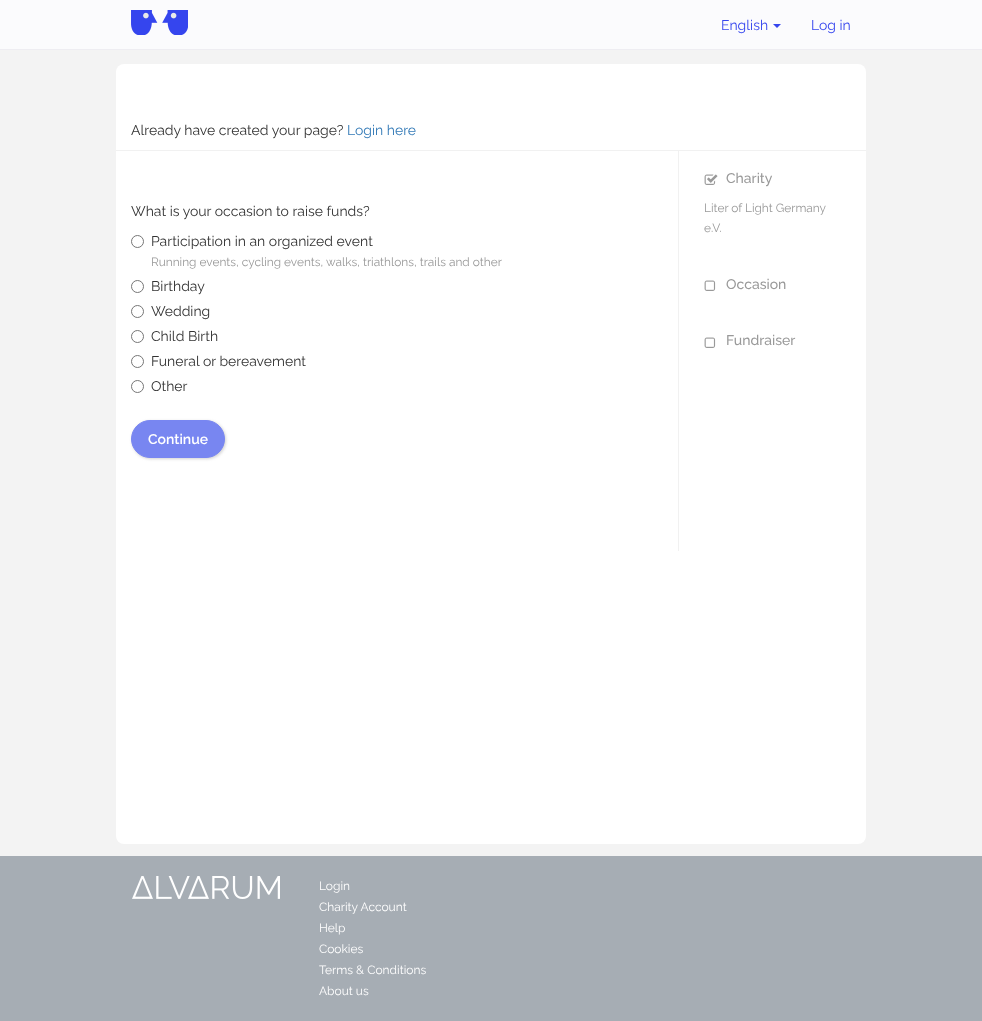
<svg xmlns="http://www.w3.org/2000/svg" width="982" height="1021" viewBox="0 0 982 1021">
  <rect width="100%" height="100%" fill="#f3f3f3"/>
  <path d="M0 0h982v49H0z" fill="#fbfbfd"/>
  <path d="M0 49h982v1H0z" fill="#eeedf2"/>
  <image x="131" y="10" width="57" height="25" href="img/1.png"/>
  <path d="M773 24H781L777 28Z" fill="#3545ee"/>
  <rect x="116" y="64" width="750" height="780" rx="8" fill="#fff"/>
  <path d="M116 150h750v1H116z" fill="#f1f1f1"/>
  <circle cx="137.5" cy="241.5" r="6" fill="none" stroke="#767676"/>
  <circle cx="137.5" cy="286.5" r="6" fill="none" stroke="#767676"/>
  <circle cx="137.5" cy="311.5" r="6" fill="none" stroke="#767676"/>
  <circle cx="137.5" cy="336.5" r="6" fill="none" stroke="#767676"/>
  <circle cx="137.5" cy="361.5" r="6" fill="none" stroke="#767676"/>
  <circle cx="137.5" cy="386.5" r="6" fill="none" stroke="#767676"/>
  <rect x="132" y="421" width="94" height="38" rx="19" fill="#6666664d" filter="blur(1.5px)"/>
  <rect x="131.5" y="420.5" width="93" height="37" rx="18.5" fill="#7886f1" stroke="#7886f1"/>
  <path d="M678 151h1v400H678z" fill="#f1f1f1"/>
  <image x="704" y="174" width="14" height="11" href="img/2.png"/>
  <image x="704" y="280" width="12" height="11" href="img/3.png"/>
  <image x="704" y="337" width="12" height="11" href="img/3.png"/>
  <path d="M0 856h982v165H0z" fill="#a6adb4"/>
  <image x="132" y="876" width="148" height="23" href="img/4.png"/>
  <g font-family="Raleway" font-size="14" fill="#3545ee">
    <text x="721" y="30">English</text>
    <text x="811" y="30">Log in</text>
  </g>
  <text x="131" y="135" font-family="Raleway" font-size="14" fill="#333">Already have created your page?</text>
  <text x="347" y="135" font-family="Raleway" font-size="14" fill="#337ab7">Login here</text>
  <g font-family="Raleway" font-size="14" fill="#333">
    <text x="131" y="216">What is your occasion to raise funds?</text>
    <text x="151" y="246">Participation in an organized event</text>
  </g>
  <text x="151" y="266" font-family="Raleway" font-size="11.9" fill="#999">Running events, cycling events, walks, triathlons, trails and other</text>
  <g font-family="Raleway" font-size="14" fill="#333">
    <text x="151" y="291">Birthday</text>
    <text x="151" y="316">Wedding</text>
    <text x="151" y="341">Child Birth</text>
    <text x="151" y="366">Funeral or bereavement</text>
    <text x="151" y="391">Other</text>
  </g>
  <text x="148" y="444" font-family="Raleway" font-size="14" font-weight="600" fill="#fff">Continue</text>
  <text x="726" y="183" font-family="Raleway" font-size="14" font-weight="500" fill="#999">Charity</text>
  <g font-family="Raleway" font-size="11.9" fill="#999">
    <text x="704" y="212">Liter of Light Germany</text>
    <text x="704" y="232">e.V.</text>
  </g>
  <g font-family="Raleway" font-size="14" font-weight="500" fill="#999">
    <text x="726" y="289">Occasion</text>
    <text x="726" y="345">Fundraiser</text>
  </g>
  <g font-family="Raleway" font-size="12" fill="#fff">
    <text x="319" y="890">Login</text>
    <text x="319" y="911">Charity Account</text>
    <text x="319" y="932">Help</text>
    <text x="319" y="953">Cookies</text>
    <text x="319" y="974">Terms &amp; Conditions</text>
    <text x="319" y="995">About us</text>
  </g>
</svg>
